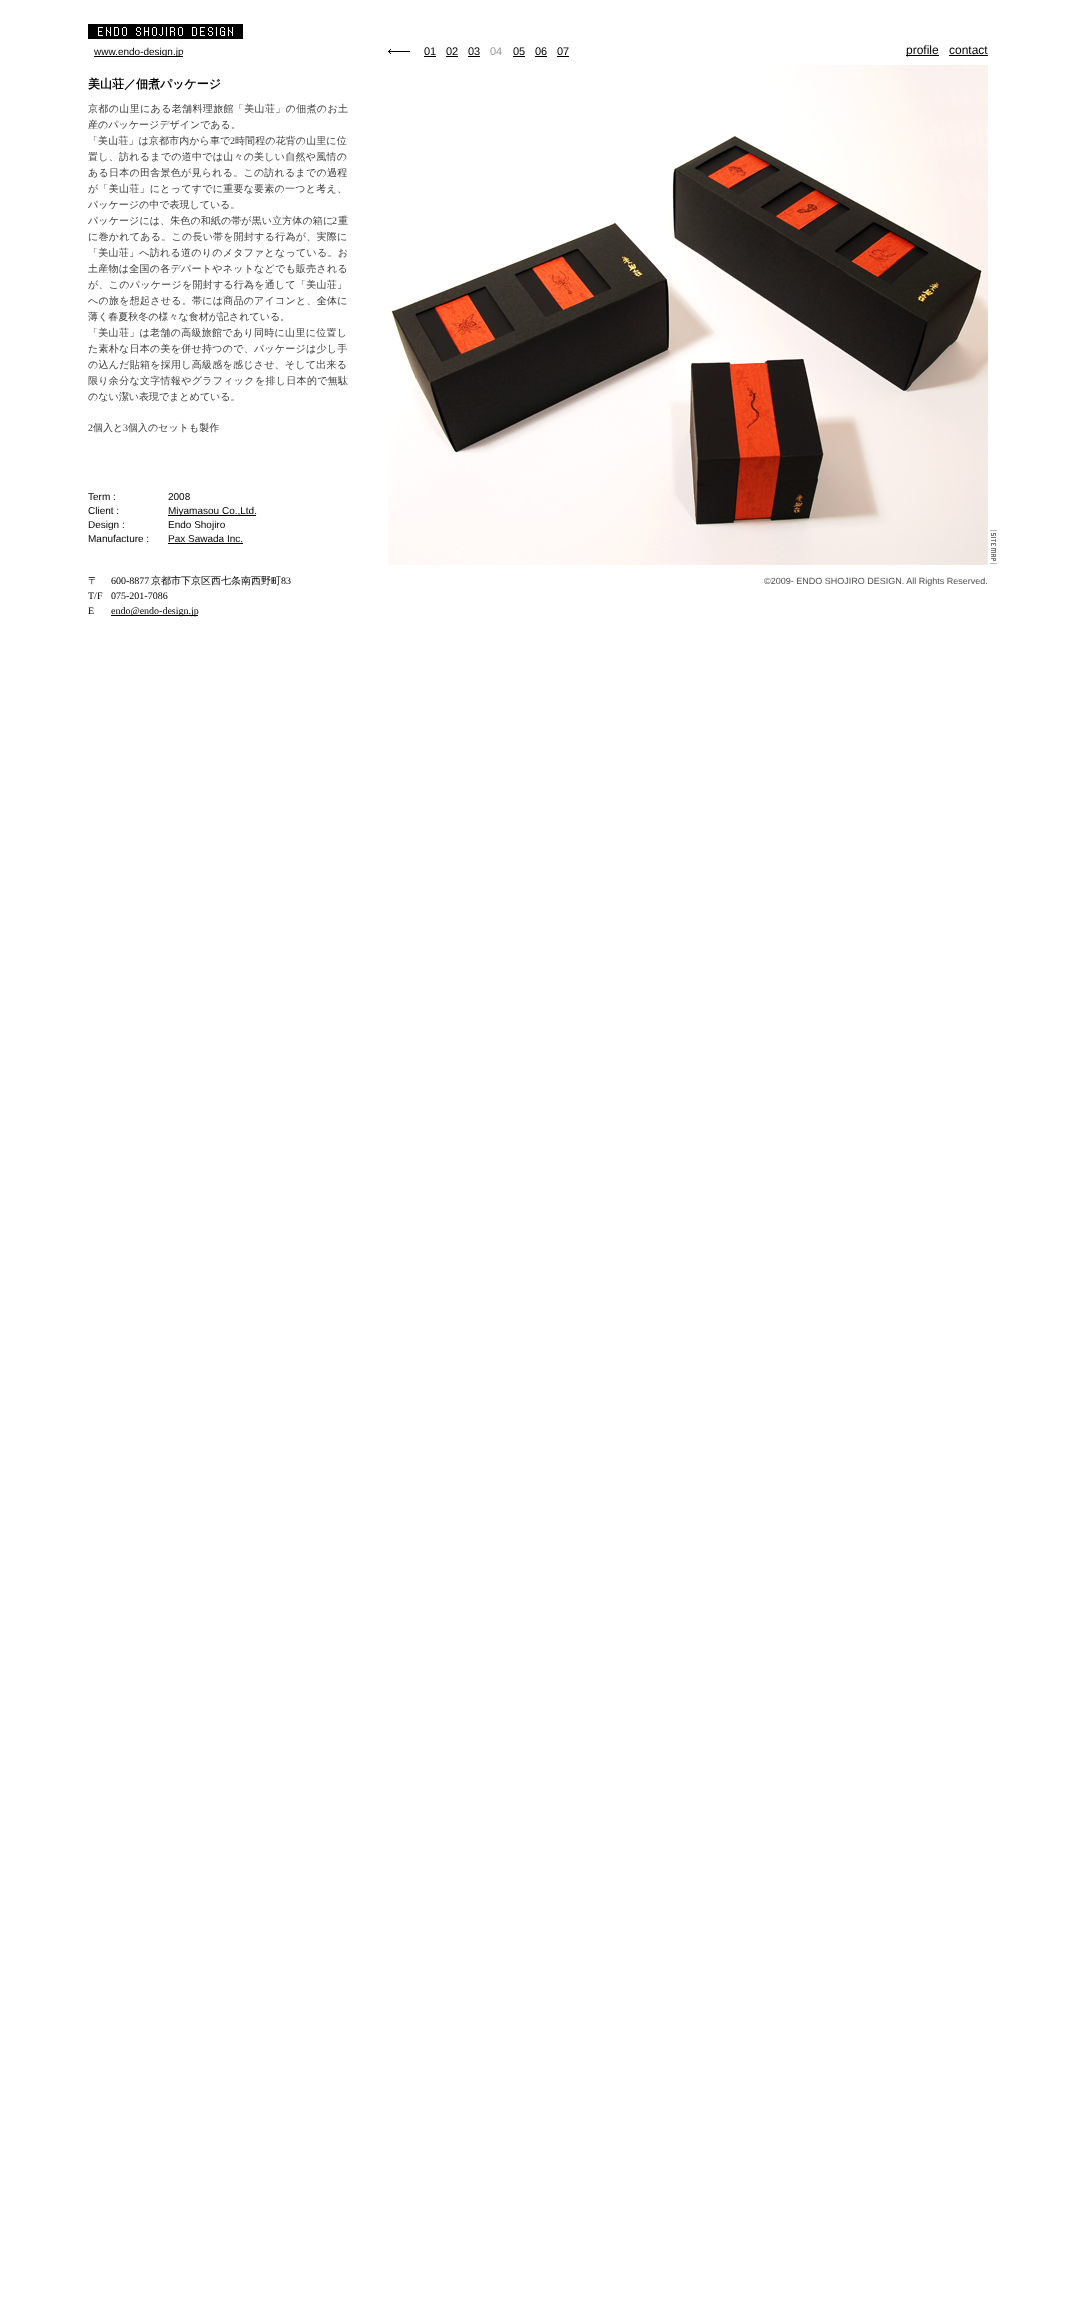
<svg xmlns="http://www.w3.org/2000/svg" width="1075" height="2309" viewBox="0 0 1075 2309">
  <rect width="100%" height="100%" fill="#fff"/>
  <image x="88" y="24" width="155" height="15" href="img/1.png"/>
  <path d="M94 56h89v1H94z" fill="#000"/>
  <image x="388" y="49" width="22" height="5" href="img/2.png"/>
  <path d="M424 56h12v1H424z" fill="#000"/>
  <path d="M446 56h12v1H446z" fill="#000"/>
  <path d="M468 56h12v1H468z" fill="#000"/>
  <path d="M513 56h12v1H513z" fill="#000"/>
  <path d="M535 56h12v1H535z" fill="#000"/>
  <path d="M557 56h12v1H557z" fill="#000"/>
  <path d="M906 55h33v1H906z" fill="#000"/>
  <path d="M949 55h39v1H949z" fill="#000"/>
  <path d="M168 515h88v1H168z" fill="#000"/>
  <path d="M168 543h75v1H168z" fill="#000"/>
  <image x="388" y="65" width="600" height="500" href="img/3.png"/>
  <image x="990" y="530" width="7" height="34" href="img/4.png"/>
  <path d="M111 615h87v1H111z" fill="#000"/>
  <text x="94" y="55" font-family="Liberation Sans" font-size="10" fill="#000">www.endo-design.jp</text>
  <g font-family="Liberation Sans" font-size="11" fill="#000">
    <text x="424" y="55">01</text>
    <text x="446" y="55">02</text>
    <text x="468" y="55">03</text>
  </g>
  <text x="490" y="55" font-family="Liberation Sans" font-size="11" fill="#999">04</text>
  <g font-family="Liberation Sans" font-size="11" fill="#000">
    <text x="513" y="55">05</text>
    <text x="535" y="55">06</text>
    <text x="557" y="55">07</text>
  </g>
  <g font-family="Liberation Sans" font-size="12" fill="#000">
    <text x="906" y="54">profile</text>
    <text x="949" y="54">contact</text>
  </g>
  <text x="88" y="88" font-family="WenQuanYi Zen Hei" font-size="12" font-weight="bold" fill="#000">美山荘／佃煮パッケージ</text>
  <text x="88" y="112" font-family="WenQuanYi Zen Hei" font-size="10" font-weight="500" letter-spacing="0.35" fill="#3c3c3c">京都の山里にある老舗料理旅館「美山荘」の佃煮のお土</text>
  <text x="88" y="128" font-family="WenQuanYi Zen Hei" font-size="10" font-weight="500" fill="#3c3c3c">産のパッケージデザインである。</text>
  <text x="88" y="144" font-family="WenQuanYi Zen Hei" font-size="10" font-weight="500" letter-spacing="0.1" fill="#3c3c3c">「美山荘」は京都市内から車で</text>
  <text x="230" y="144" font-family="Liberation Serif" font-size="10" letter-spacing="0.1" fill="#3c3c3c">2</text>
  <text x="235" y="144" font-family="WenQuanYi Zen Hei" font-size="10" font-weight="500" letter-spacing="0.1" fill="#3c3c3c">時間程の花背の山里に位</text>
  <g font-family="WenQuanYi Zen Hei" font-size="10" font-weight="500" letter-spacing="0.25" fill="#3c3c3c">
    <text x="88" y="160">置し、訪れるまでの道中では山々の美しい自然や風情の</text>
    <text x="88" y="176">ある日本の田舎景色が見られる。この訪れるまでの過程</text>
    <text x="88" y="192">が「美山荘」にとってすでに重要な要素の一つと考え、</text>
  </g>
  <text x="88" y="208" font-family="WenQuanYi Zen Hei" font-size="10" font-weight="500" fill="#3c3c3c">パッケージの中で表現している。</text>
  <text x="88" y="224" font-family="WenQuanYi Zen Hei" font-size="10" font-weight="500" letter-spacing="0.1" fill="#3c3c3c">パッケージには、朱色の和紙の帯が黒い立方体の箱に</text>
  <text x="332" y="224" font-family="Liberation Serif" font-size="10" letter-spacing="0.1" fill="#3c3c3c">2</text>
  <text x="338" y="224" font-family="WenQuanYi Zen Hei" font-size="10" font-weight="500" letter-spacing="0.1" fill="#3c3c3c">重</text>
  <g font-family="WenQuanYi Zen Hei" font-size="10" font-weight="500" letter-spacing="0.25" fill="#3c3c3c">
    <text x="88" y="240">に巻かれてある。この長い帯を開封する行為が、実際に</text>
    <text x="88" y="256">「美山荘」へ訪れる道のりのメタファとなっている。お</text>
    <text x="88" y="272">土産物は全国の各デパートやネットなどでも販売される</text>
    <text x="88" y="288">が、このパッケージを開封する行為を通して「美山荘」</text>
    <text x="88" y="304">への旅を想起させる。帯には商品のアイコンと、全体に</text>
  </g>
  <text x="88" y="320" font-family="WenQuanYi Zen Hei" font-size="10" font-weight="500" fill="#3c3c3c">薄く春夏秋冬の様々な食材が記されている。</text>
  <text x="88" y="336" font-family="WenQuanYi Zen Hei" font-size="10" font-weight="500" letter-spacing="0.3" fill="#3c3c3c">「美山荘」は老舗の高級旅館であり同時に山里に位置し</text>
  <g font-family="WenQuanYi Zen Hei" font-size="10" font-weight="500" letter-spacing="0.25" fill="#3c3c3c">
    <text x="88" y="352">た素朴な日本の美を併せ持つので、パッケージは少し手</text>
    <text x="88" y="368">の込んだ貼箱を採用し高級感を感じさせ、そして出来る</text>
  </g>
  <text x="88" y="384" font-family="WenQuanYi Zen Hei" font-size="10" font-weight="500" letter-spacing="0.3" fill="#3c3c3c">限り余分な文字情報やグラフィックを排し日本的で無駄</text>
  <text x="88" y="400" font-family="WenQuanYi Zen Hei" font-size="10" font-weight="500" fill="#3c3c3c">のない潔い表現でまとめている。</text>
  <text x="88" y="431" font-family="Liberation Serif" font-size="10" fill="#3c3c3c">2</text>
  <text x="93" y="431" font-family="WenQuanYi Zen Hei" font-size="10" font-weight="500" fill="#3c3c3c">個入と</text>
  <text x="123" y="431" font-family="Liberation Serif" font-size="10" fill="#3c3c3c">3</text>
  <text x="128" y="431" font-family="WenQuanYi Zen Hei" font-size="10" font-weight="500" fill="#3c3c3c">個入のセットも製作</text>
  <g font-family="Liberation Sans" font-size="10" fill="#000">
    <text x="88" y="500">Term :</text>
    <text x="88" y="514">Client :</text>
    <text x="88" y="528">Design :</text>
    <text x="88" y="542">Manufacture :</text>
    <text x="168" y="500">2008</text>
    <text x="168" y="514">Miyamasou Co.,Ltd.</text>
    <text x="168" y="528">Endo Shojiro</text>
    <text x="168" y="542">Pax Sawada Inc.</text>
  </g>
  <text x="88" y="584" font-family="WenQuanYi Zen Hei" font-size="10" font-weight="500" fill="#000">〒</text>
  <g font-family="Liberation Serif" font-size="10" fill="#000">
    <text x="88" y="599">T/F</text>
    <text x="88" y="614">E</text>
    <text x="111" y="584">600-8877</text>
  </g>
  <text x="151" y="584" font-family="WenQuanYi Zen Hei" font-size="10" font-weight="500" fill="#000">京都市下京区西七条南西野町</text>
  <g font-family="Liberation Serif" font-size="10" fill="#000">
    <text x="281" y="584">83</text>
    <text x="111" y="599">075-201-7086</text>
    <text x="111" y="614">endo@endo-design.jp</text>
  </g>
  <text x="764" y="584" font-family="Liberation Sans" font-size="9" fill="#505050">©2009- ENDO SHOJIRO DESIGN. All Rights Reserved.</text>
</svg>
